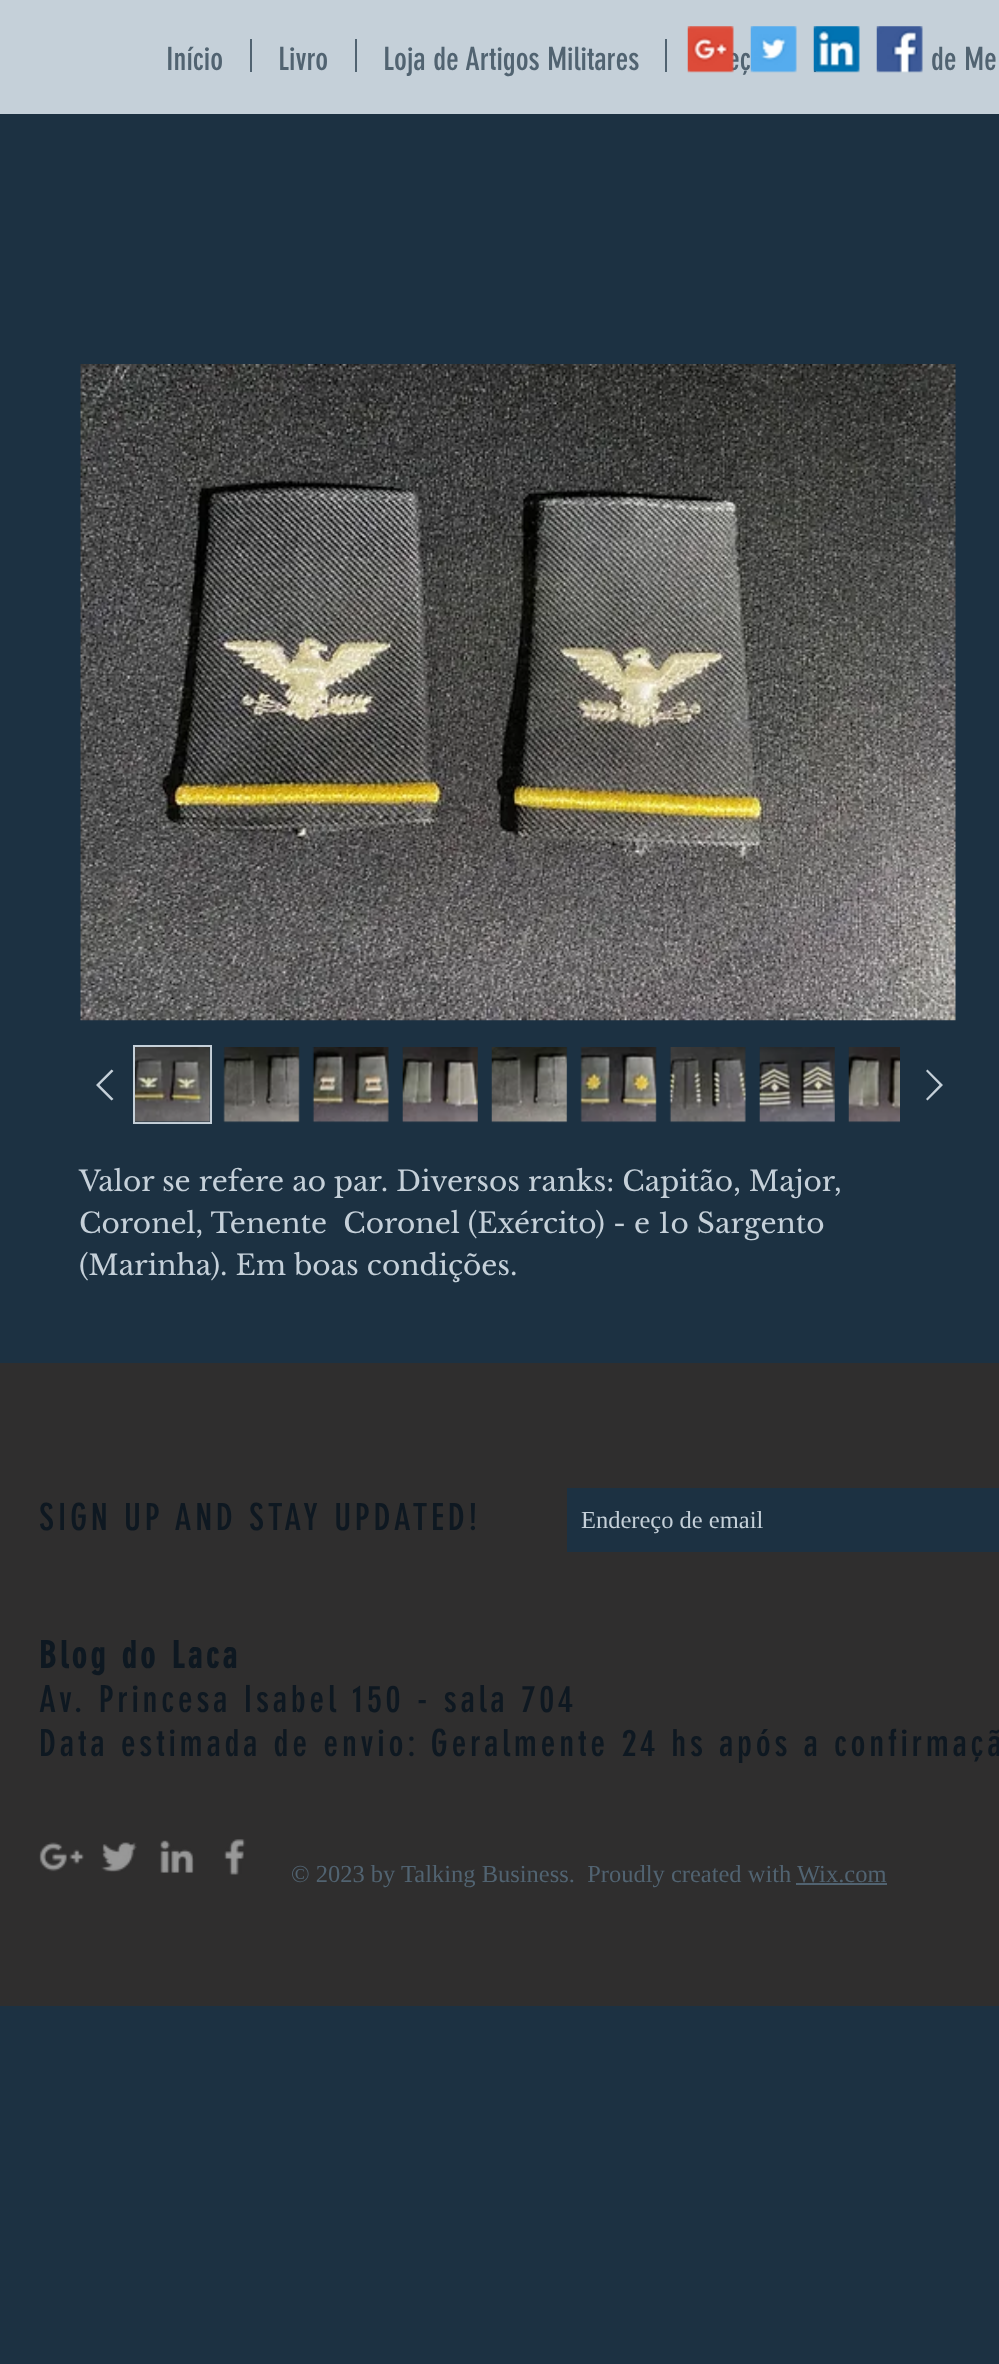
<svg xmlns="http://www.w3.org/2000/svg" width="999" height="2364" viewBox="0 0 999 2364">
  <rect width="100%" height="100%" fill="#1c3142"/>
  <path d="M0 0h999v114H0z" fill="#c5d0d9"/>
  <path d="M814 65h2v7H814z" fill="#516371"/>
  <image x="813" y="26" width="47" height="47" href="img/3.png"/>
  <image x="876" y="26" width="47" height="47" href="img/4.png"/>
  <path d="M250 39h2v33H250z" fill="#516371"/>
  <path d="M355 39h2v33H355z" fill="#516371"/>
  <path d="M665 39h2v33H665z" fill="#516371"/>
  <image x="80" y="364" width="876" height="657" href="img/5.png"/>
  <path d="M111.5 1069.5L113.5 1071L99.5 1085L113.5 1099L111.5 1100.5L96 1085Z" fill="#c5d0d9" fill-rule="evenodd"/>
  <path d="M134 1046h77v77H134z" fill="none" stroke="#c5d0d9" stroke-width="2"/>
  <image x="135" y="1047" width="76" height="76" href="img/6.png"/>
  <image x="223" y="1047" width="77" height="76" href="img/7.png"/>
  <image x="312" y="1047" width="77" height="76" href="img/8.png"/>
  <image x="402" y="1047" width="76" height="76" href="img/9.png"/>
  <image x="491" y="1047" width="77" height="76" href="img/10.png"/>
  <image x="580" y="1047" width="77" height="76" href="img/11.png"/>
  <image x="669" y="1047" width="77" height="76" href="img/12.png"/>
  <image x="759" y="1047" width="76" height="76" href="img/13.png"/>
  <image x="848" y="1047" width="52" height="76" href="img/14.png"/>
  <path d="M927.5 1069.5L943 1085L927.5 1100.5L926 1099L939.5 1085L926 1071Z" fill="#c5d0d9" fill-rule="evenodd"/>
  <path d="M0 1363h999v643H0z" fill="#2f2e2e"/>
  <path d="M567 1488h432v64H567z" fill="#1c3142"/>
  <image x="39" y="1842" width="45" height="30" href="img/15.png"/>
  <image x="101" y="1842" width="36" height="30" href="img/16.png"/>
  <image x="160" y="1840" width="34" height="33" href="img/17.png"/>
  <image x="224" y="1839" width="22" height="36" href="img/18.png"/>
  <path d="M796 1883h91v2H796z" fill="#516371"/>
  <g font-family="'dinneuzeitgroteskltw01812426'" font-size="31.5" fill="#516371">
    <text x="166" y="70">Início</text>
    <text x="278" y="70">Livro</text>
    <text x="383" y="70">Loja de Artigos Militares</text>
    <text x="727" y="70">eç</text>
  </g>
  <image x="750" y="26" width="47" height="47" href="img/2.png"/>
  <image x="687" y="26" width="47" height="47" href="img/1.png"/>
  <text x="931" y="70" font-family="'dinneuzeitgroteskltw01812426'" font-size="31.5" fill="#516371">de Me</text>
  <g font-family="Libre Baskerville" font-size="28" fill="#c5d0d9">
    <text x="79" y="1191">Valor se refere ao par. Diversos ranks: Capitão, Major,</text>
    <text x="79" y="1233" xml:space="preserve">Coronel, Tenente  Coronel (Exército) - e 1o Sargento</text>
    <text x="79" y="1275">(Marinha). Em boas condições.</text>
  </g>
  <text x="39" y="1530" font-family="'dinneuzeitgroteskltw01812426'" font-size="36.75" letter-spacing="3.68" fill="#0e1821">SIGN UP AND STAY UPDATED!</text>
  <text x="581" y="1528" font-family="Liberation Serif" font-size="24.5" fill="#c5d0d9">Endereço de email</text>
  <text x="39" y="1668" font-family="'dinneuzeitgroteskltw01812426'" font-size="36.75" font-weight="bold" letter-spacing="3.68" fill="#0e1821">Blog do Laca</text>
  <g font-family="'dinneuzeitgroteskltw01812426'" font-size="36.75" letter-spacing="3.68" fill="#0e1821">
    <text x="39" y="1712">Av. Princesa Isabel 150 - sala 704</text>
    <text x="39" y="1756">Data estimada de envio: Geralmente 24 hs após a confirmaçã</text>
  </g>
  <text x="291" y="1882" font-family="Liberation Serif" font-size="24.5" fill="#516371" xml:space="preserve">© 2023 by Talking Business.  Proudly created with Wix.com</text>
</svg>
